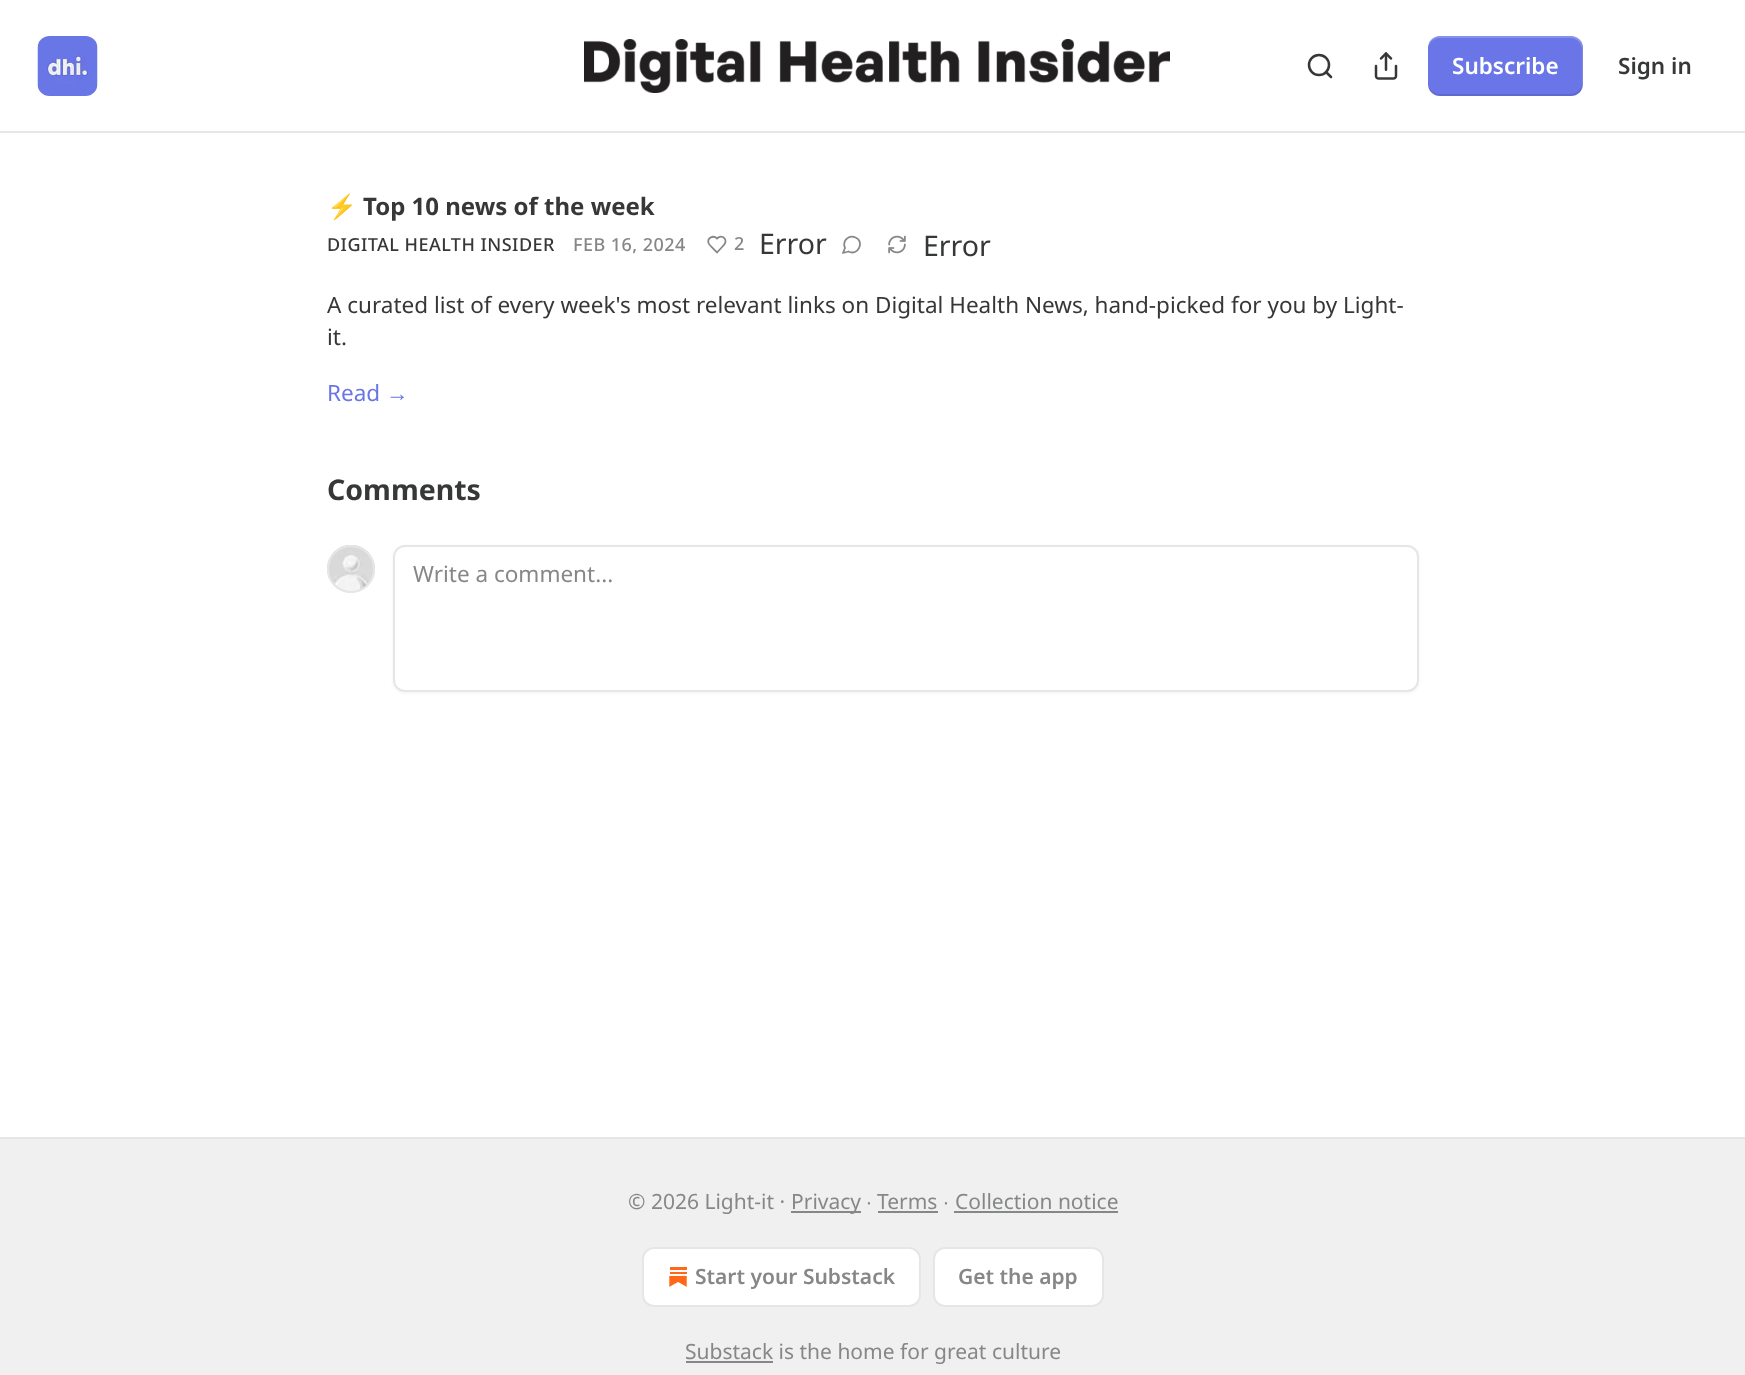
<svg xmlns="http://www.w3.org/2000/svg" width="1745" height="1375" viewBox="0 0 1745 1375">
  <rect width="100%" height="100%" fill="#fff"/>
  <path d="M0 131h1745v2H0z" fill="#e6e6e6"/>
  <image x="37" y="36" width="61" height="60" href="img/1.png"/>
  <image x="584" y="39" width="586" height="54" href="img/2.png"/>
  <circle cx="1319" cy="65" r="10" fill="none" stroke="#363737" stroke-width="2.5"/>
  <path d="M1331 77L1326 72" fill="none" stroke="#363737" stroke-width="2.5" stroke-linecap="round" stroke-linejoin="round"/>
  <image x="1374" y="52" width="24" height="28" href="img/3.png"/>
  <rect x="1428" y="36" width="155" height="60" rx="12" fill="#6a76e7"/>
  <path d="M1428 82V84C1428 91 1433 96 1440 96H1571C1578 96 1583 91 1583 84V48C1583 46 1582 43 1581 41L1582 46V82C1582 89 1577 94 1570 94H1440C1433 94 1428 89 1428 82Z" fill="#0000001a"/>
  <path d="M1440 38H1570C1577 38 1582 43 1582 50V86L1581 91C1582 89 1583 86 1583 84V48C1583 41 1578 36 1571 36H1440C1433 36 1428 41 1428 48V50C1428 43 1433 38 1440 38Z" fill="#ffffff33"/>
  <path d="M723 246C729.5 240 722 233.5 717 238.5C713.5 235 707 237.5 708.5 243C709.5 245.5 715 250 717 252.5Z" fill="none" stroke="#868787" stroke-width="1.8" stroke-linecap="round" stroke-linejoin="round"/>
  <path d="M848.5 251.5C858 256.5 865 241.5 855.5 237.5C853 236.5 850.5 236.5 848.5 237.5C844.5 239.5 843 244 845 248L843 253Z" fill="none" stroke="#868787" stroke-width="1.8" stroke-linecap="round" stroke-linejoin="round"/>
  <image x="888" y="235" width="18" height="19" href="img/4.png"/>
  <circle cx="351" cy="569" r="23" fill="none" stroke="#e6e6e6" stroke-width="2"/>
  <image x="327" y="545" width="48" height="47" href="img/5.png"/>
  <circle cx="351" cy="569" r="23" fill="none" stroke="#e6e6e6" stroke-width="2"/>
  <rect x="393" y="546" width="1026" height="147" rx="12" fill="#0000000d" filter="blur(1.5px)"/>
  <rect x="394" y="546" width="1024" height="145" rx="11" fill="#fff" stroke="#e6e6e6" stroke-width="2"/>
  <path d="M0 1139h1745v236H0z" fill="#f0f0f0"/>
  <path d="M0 1137h1745v2H0z" fill="#e6e6e6"/>
  <path d="M791 1211h70v2H791z" fill="#868787"/>
  <path d="M878 1211h60v2H878z" fill="#868787"/>
  <path d="M954 1211h164v2H954z" fill="#868787"/>
  <rect x="643" y="1248" width="277" height="58" rx="11" fill="#fff" stroke="#e6e6e6" stroke-width="2"/>
  <image x="669" y="1267" width="18" height="20" href="img/6.png"/>
  <rect x="934" y="1248" width="169" height="58" rx="11" fill="#fff" stroke="#e6e6e6" stroke-width="2"/>
  <path d="M686 1361h87v2H686z" fill="#868787"/>
  <text x="1452" y="74" font-family="Noto Sans" font-size="22.5" font-weight="600" fill="#fff">Subscribe</text>
  <text x="1618" y="74" font-family="Noto Sans" font-size="22.5" font-weight="600" fill="#363737">Sign in</text>
  <text x="327" y="215" font-family="Noto Color Emoji" font-size="24" font-weight="bold" fill="#363737">⚡️</text>
  <text x="363" y="215" font-family="Noto Sans" font-size="24" font-weight="bold" fill="#363737">Top 10 news of the week</text>
  <text x="327" y="251" font-family="Noto Sans" font-size="18" font-weight="500" letter-spacing="0.45" fill="#363737">DIGITAL HEALTH INSIDER</text>
  <g font-family="Noto Sans" font-size="18" font-weight="500" letter-spacing="0.45" fill="#868787">
    <text x="573" y="251">FEB 16, 2024</text>
    <text x="734" y="250">2</text>
  </g>
  <g font-family="Noto Sans" font-size="28.5" fill="#363737">
    <text x="759" y="254">Error</text>
    <text x="923" y="256">Error</text>
  </g>
  <g font-family="Noto Sans" font-size="22.5" fill="#363737">
    <text x="327" y="313">A curated list of every week's most relevant links on Digital Health News, hand-picked for you by Light-</text>
    <text x="327" y="345">it.</text>
  </g>
  <text x="327" y="401" font-family="Noto Sans" font-size="22.5" fill="#6a76e7">Read</text>
  <text x="386" y="401" font-family="Liberation Sans" font-size="22.5" fill="#6a76e7">→</text>
  <text x="327" y="500" font-family="Noto Sans" font-size="28.5" font-weight="bold" fill="#363737">Comments</text>
  <text x="413" y="582" font-family="Noto Sans" font-size="22.5" fill="#868787">Write a comment...</text>
  <g font-family="Noto Sans" font-size="21" fill="#868787">
    <text x="628" y="1209">© 2026 Light-it ·</text>
    <text x="791" y="1209">Privacy</text>
  </g>
  <text x="866" y="1209" font-family="Liberation Sans" font-size="21" fill="#868787">∙</text>
  <text x="877" y="1209" font-family="Noto Sans" font-size="21" fill="#868787">Terms</text>
  <text x="943" y="1209" font-family="Liberation Sans" font-size="21" fill="#868787">∙</text>
  <text x="955" y="1209" font-family="Noto Sans" font-size="21" fill="#868787">Collection notice</text>
  <g font-family="Noto Sans" font-size="21" font-weight="600" fill="#868787">
    <text x="695" y="1284">Start your Substack</text>
    <text x="958" y="1284">Get the app</text>
  </g>
  <text x="685" y="1359" font-family="Noto Sans" font-size="21" fill="#868787">Substack is the home for great culture</text>
</svg>
